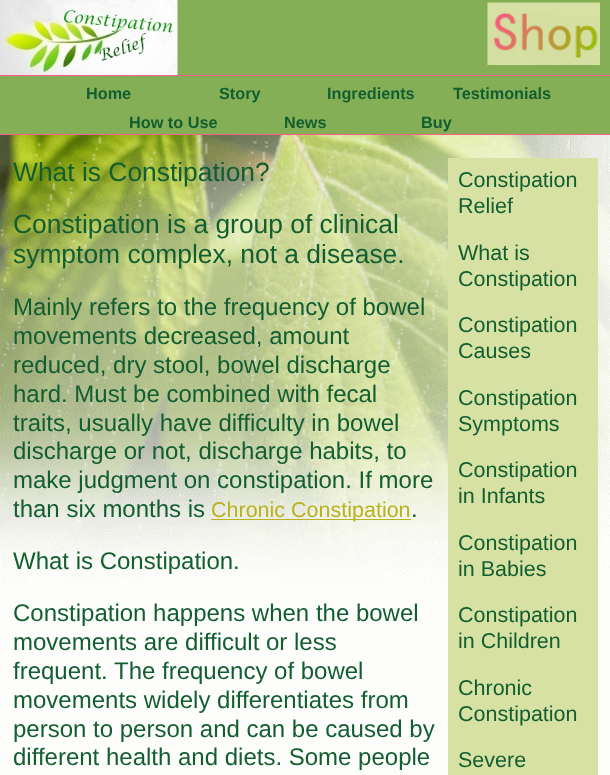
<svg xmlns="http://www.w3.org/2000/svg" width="610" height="775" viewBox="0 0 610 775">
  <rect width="100%" height="100%" fill="#fdfdfc"/>
  <image x="0" y="135" width="610" height="453" href="img/1.png"/>
  <path d="M177 0h433v75H177z" fill="#84af56"/>
  <image x="0" y="0" width="178" height="75" href="img/2.png"/>
  <image x="487" y="2" width="113" height="63" href="img/3.png"/>
  <path d="M0 76h610v58H0z" fill="#84af56"/>
  <path d="M0 75h610v1H0z" fill="#ff5c89"/>
  <path d="M0 134h610v1H0z" fill="#ff5c89"/>
  <path d="M448 158h150v617H448z" fill="#d6e1a3"/>
  <path d="M211 519h200v1H211z" fill="#b8b21e"/>
  <g font-family="Liberation Sans" font-size="16.25" font-weight="bold" fill="#125e30">
    <text x="86" y="99">Home</text>
    <text x="219" y="99">Story</text>
    <text x="327" y="99">Ingredients</text>
    <text x="453" y="99">Testimonials</text>
    <text x="129" y="128">How to Use</text>
    <text x="284" y="128">News</text>
    <text x="421" y="128">Buy</text>
  </g>
  <text x="13" y="181" font-family="Liberation Sans" font-size="26.4" fill="#125e30">What is Constipation?</text>
  <g font-family="Liberation Sans" font-size="21.5" fill="#125e30">
    <text x="458" y="187">Constipation</text>
    <text x="458" y="213">Relief</text>
    <text x="458" y="260">What is</text>
    <text x="458" y="286">Constipation</text>
    <text x="458" y="332">Constipation</text>
    <text x="458" y="358">Causes</text>
    <text x="458" y="405">Constipation</text>
    <text x="458" y="431">Symptoms</text>
    <text x="458" y="477">Constipation</text>
    <text x="458" y="503">in Infants</text>
    <text x="458" y="550">Constipation</text>
    <text x="458" y="576">in Babies</text>
    <text x="458" y="622">Constipation</text>
    <text x="458" y="648">in Children</text>
    <text x="458" y="695">Chronic</text>
    <text x="458" y="721">Constipation</text>
    <text x="458" y="767">Severe</text>
  </g>
  <g font-family="Liberation Sans" font-size="26.4" fill="#125e30">
    <text x="13" y="233">Constipation is a group of clinical</text>
    <text x="13" y="263">symptom complex, not a disease.</text>
  </g>
  <g font-family="Liberation Sans" font-size="24" fill="#125e30">
    <text x="13" y="315">Mainly refers to the frequency of bowel</text>
    <text x="13" y="344">movements decreased, amount</text>
    <text x="13" y="373">reduced, dry stool, bowel discharge</text>
    <text x="13" y="402">hard. Must be combined with fecal</text>
    <text x="13" y="431">traits, usually have difficulty in bowel</text>
    <text x="13" y="459">discharge or not, discharge habits, to</text>
    <text x="13" y="488">make judgment on constipation. If more</text>
    <text x="13" y="517">than six months is</text>
  </g>
  <text x="211" y="517" font-family="Liberation Sans" font-size="21.5" fill="#b8b21e">Chronic Constipation</text>
  <g font-family="Liberation Sans" font-size="24" fill="#125e30">
    <text x="411" y="517">.</text>
    <text x="13" y="569">What is Constipation.</text>
    <text x="13" y="621">Constipation happens when the bowel</text>
    <text x="13" y="650">movements are difficult or less</text>
    <text x="13" y="679">frequent. The frequency of bowel</text>
    <text x="13" y="708">movements widely differentiates from</text>
    <text x="13" y="737">person to person and can be caused by</text>
    <text x="13" y="765">different health and diets. Some people</text>
  </g>
</svg>
